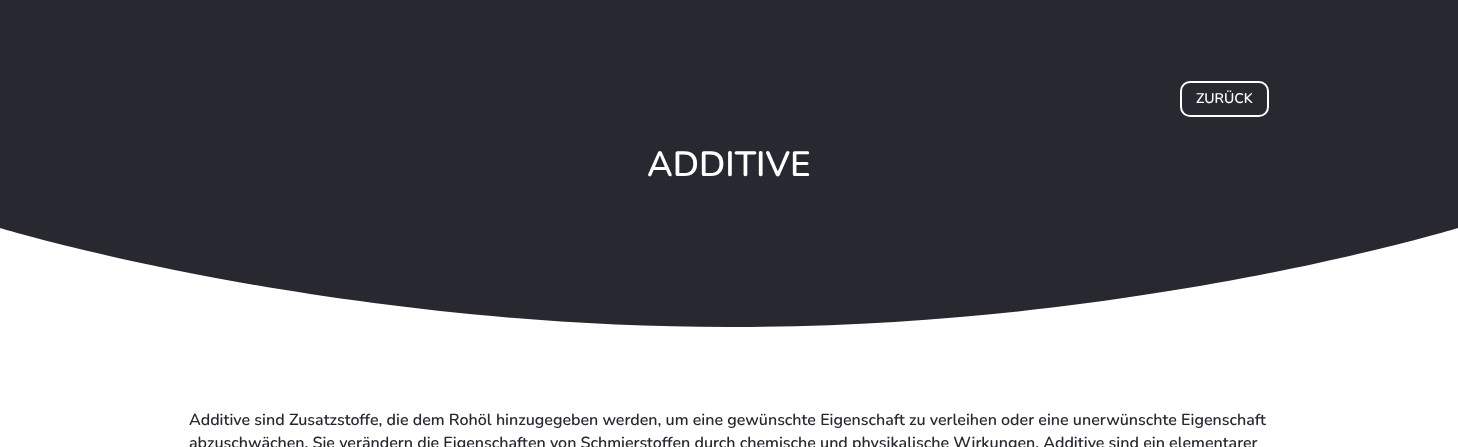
<svg xmlns="http://www.w3.org/2000/svg" width="1458" height="447" viewBox="0 0 1458 447">
  <rect width="100%" height="100%" fill="#fff"/>
  <path d="M0 0h1458v327H0z" fill="#272830"/>
  <rect x="1181" y="82" width="87" height="34" rx="9" fill="none" stroke="#fff" stroke-width="2"/>
  <path d="M1458 328V228C1458 228 1132 328 729 327C326 327 0 228 0 228V328Z" fill="#fff"/>
  <text x="1196" y="103" font-family="Nunito" font-size="14" font-weight="600" fill="#fff">ZURÜCK</text>
  <text x="647" y="176" font-family="Nunito" font-size="35" font-weight="600" fill="#fff">ADDITIVE</text>
  <g font-family="Nunito" font-size="16" font-weight="600" fill="#272830">
    <text x="189" y="425">Additive sind Zusatzstoffe, die dem Rohöl hinzugegeben werden, um eine gewünschte Eigenschaft zu verleihen oder eine unerwünschte Eigenschaft</text>
    <text x="189" y="448">abzuschwächen. Sie verändern die Eigenschaften von Schmierstoffen durch chemische und physikalische Wirkungen. Additive sind ein elementarer</text>
  </g>
</svg>
